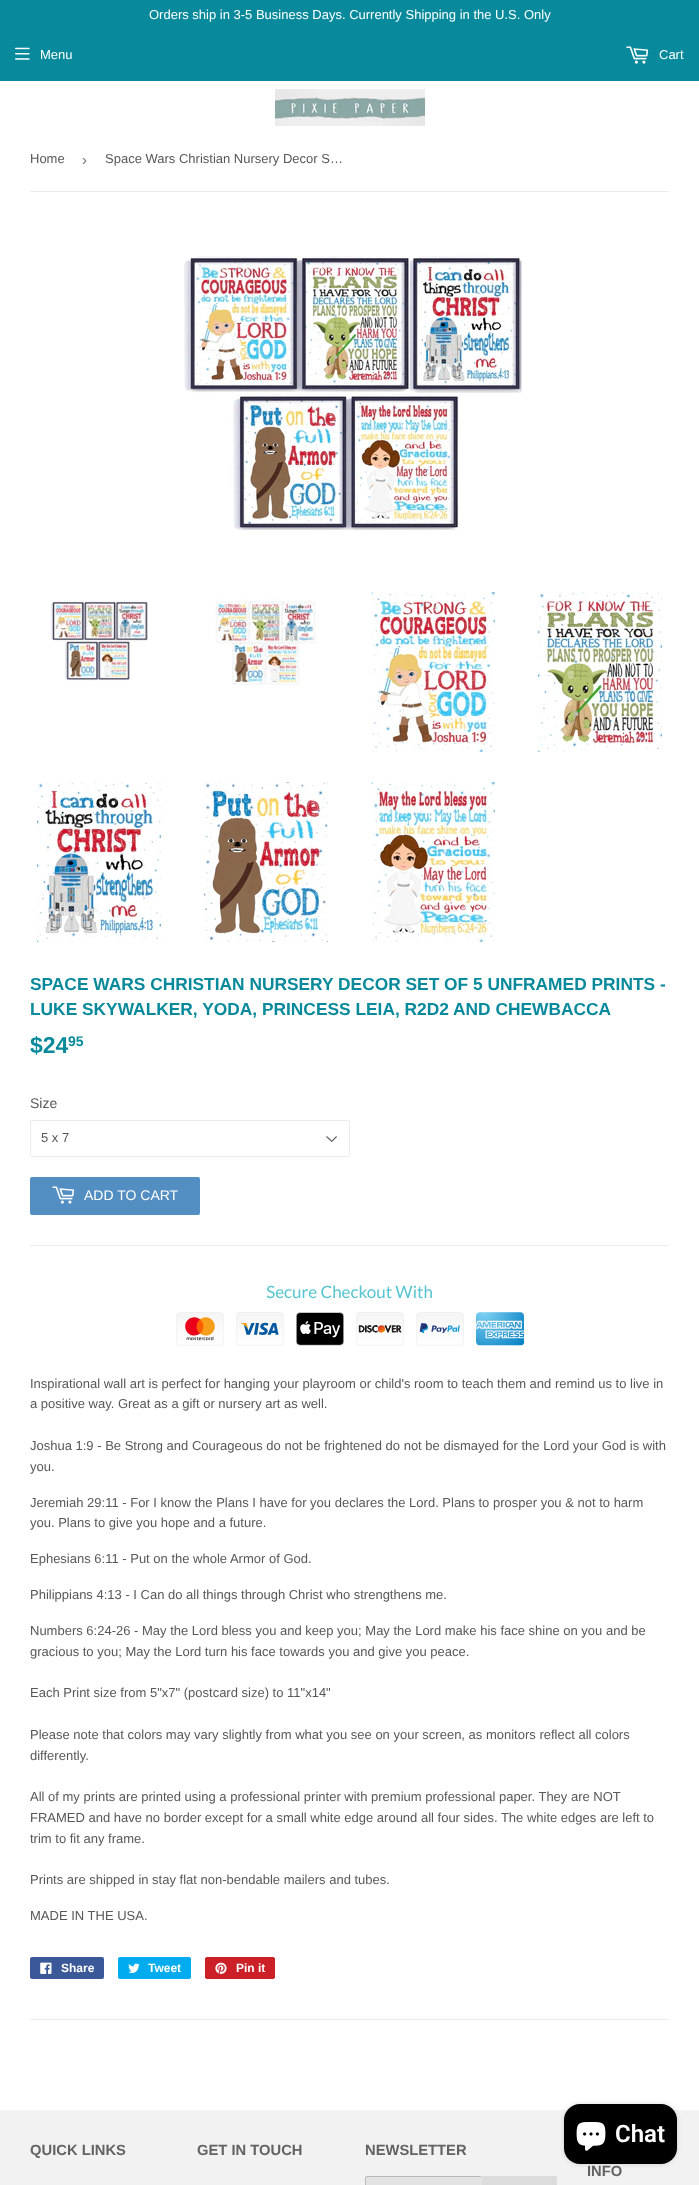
<svg xmlns="http://www.w3.org/2000/svg" width="699" height="2185" viewBox="0 0 699 2185">
  <rect width="100%" height="100%" fill="#fff"/>
  <path d="M0 0h699v81H0z" fill="#088a9c"/>
  <image x="15" y="47" width="15" height="13" href="img/1.png"/>
  <image x="626" y="46" width="23" height="18" href="img/2.png"/>
  <image x="275" y="89" width="150" height="37" href="img/3.png"/>
  <path d="M30 191h639v1H30z" fill="#ececec"/>
  <image x="184" y="255" width="338" height="277" href="img/4.png"/>
  <image x="50" y="600" width="98" height="81" href="img/5.png"/>
  <image x="215" y="599" width="102" height="87" href="img/6.png"/>
  <image x="371" y="592" width="124" height="160" href="img/7.png"/>
  <image x="538" y="592" width="124" height="160" href="img/8.png"/>
  <image x="37" y="782" width="124" height="160" href="img/9.png"/>
  <image x="204" y="782" width="124" height="160" href="img/10.png"/>
  <image x="371" y="782" width="124" height="160" href="img/11.png"/>
  <image x="326" y="1136" width="11" height="6" href="img/12.png"/>
  <rect x="30.5" y="1120.5" width="319" height="36" rx="1.5" fill="none" stroke="#ececec"/>
  <rect x="30" y="1177" width="170" height="38" rx="2" fill="#528ec1"/>
  <image x="52" y="1186" width="23" height="18" href="img/13.png"/>
  <path d="M30 1245h639v1H30z" fill="#ececec"/>
  <image x="176" y="1285" width="348" height="61" href="img/14.png"/>
  <rect x="30" y="1957" width="74" height="22" rx="2" fill="#3b5998"/>
  <image x="40" y="1962" width="12" height="12" href="img/15.png"/>
  <rect x="118" y="1957" width="73" height="22" rx="2" fill="#00aced"/>
  <image x="128" y="1963" width="12" height="10" href="img/16.png"/>
  <rect x="205" y="1957" width="70" height="22" rx="2" fill="#cb2027"/>
  <image x="215" y="1962" width="12" height="12" href="img/17.png"/>
  <path d="M30 2019h639v1H30z" fill="#ececec"/>
  <path d="M0 2110h699v75H0z" fill="#f2f2f2"/>
  <rect x="564" y="2104" width="113" height="60" rx="16" fill="#00000026" filter="blur(2.5px)"/>
  <rect x="564" y="2104" width="113" height="60" rx="16" fill="#000"/>
  <image x="576" y="2122" width="30" height="29" href="img/18.png"/>
  <rect x="365" y="2176" width="117" height="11" rx="2" fill="#e3e3e3"/>
  <path d="M366 2176h115v1H366z" fill="#b9b9b9"/>
  <path d="M365 2177h1v8H365z" fill="#b9b9b9"/>
  <path d="M482 2176H555C556 2176 557 2177 557 2178V2185C557 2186 556 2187 555 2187H482Z" fill="#dcdcdc"/>
  <g font-family="Liberation Sans" font-size="13" fill="#fff">
    <text x="149" y="19">Orders ship in 3-5 Business Days. Currently Shipping in the U.S. Only</text>
    <text x="40" y="59">Menu</text>
    <text x="659" y="59">Cart</text>
  </g>
  <text x="30" y="163" font-family="Liberation Sans" font-size="13" fill="#585858">Home</text>
  <text x="82" y="165" font-family="Liberation Sans" font-size="15" fill="#767676">›</text>
  <text x="105" y="163" font-family="Liberation Sans" font-size="13" fill="#585858">Space Wars Christian Nursery Decor S…</text>
  <g font-family="Liberation Sans" font-size="17.35" font-weight="bold" fill="#088a9c">
    <text x="30" y="990">SPACE WARS CHRISTIAN NURSERY DECOR SET OF 5 UNFRAMED PRINTS -</text>
    <text x="30" y="1015">LUKE SKYWALKER, YODA, PRINCESS LEIA, R2D2 AND CHEWBACCA</text>
  </g>
  <text x="30" y="1053" font-family="Liberation Sans" font-size="23" font-weight="bold" fill="#088a9c">$24</text>
  <text x="68" y="1046" font-family="Liberation Sans" font-size="14" font-weight="bold" fill="#088a9c">95</text>
  <text x="30" y="1108" font-family="Liberation Sans" font-size="14" fill="#585858">Size</text>
  <text x="41" y="1142" font-family="Liberation Sans" font-size="13" fill="#585858">5 x 7</text>
  <text x="84" y="1200" font-family="Liberation Sans" font-size="14" fill="#fff">ADD TO CART</text>
  <g font-family="Liberation Sans" font-size="13" fill="#585858">
    <text x="30" y="1388">Inspirational wall art is perfect for hanging your playroom or child's room to teach them and remind us to live in</text>
    <text x="30" y="1408">a positive way. Great as a gift or nursery art as well.</text>
    <text x="30" y="1450">Joshua 1:9 - Be Strong and Courageous do not be frightened do not be dismayed for the Lord your God is with</text>
    <text x="30" y="1471">you.</text>
    <text x="30" y="1507">Jeremiah 29:11 - For I know the Plans I have for you declares the Lord. Plans to prosper you &amp; not to harm</text>
    <text x="30" y="1527">you. Plans to give you hope and a future.</text>
    <text x="30" y="1563">Ephesians 6:11 - Put on the whole Armor of God.</text>
    <text x="30" y="1599">Philippians 4:13 - I Can do all things through Christ who strengthens me.</text>
    <text x="30" y="1635">Numbers 6:24-26 - May the Lord bless you and keep you; May the Lord make his face shine on you and be</text>
    <text x="30" y="1656">gracious to you; May the Lord turn his face towards you and give you peace.</text>
    <text x="30" y="1697">Each Print size from 5"x7" (postcard size) to 11"x14"</text>
    <text x="30" y="1739">Please note that colors may vary slightly from what you see on your screen, as monitors reflect all colors</text>
    <text x="30" y="1760">differently.</text>
    <text x="30" y="1801">All of my prints are printed using a professional printer with premium professional paper. They are NOT</text>
    <text x="30" y="1822">FRAMED and have no border except for a small white edge around all four sides. The white edges are left to</text>
    <text x="30" y="1843">trim to fit any frame.</text>
    <text x="30" y="1884">Prints are shipped in stay flat non-bendable mailers and tubes.</text>
    <text x="30" y="1920">MADE IN THE USA.</text>
  </g>
  <g font-family="Liberation Sans" font-size="12" font-weight="bold" fill="#fff">
    <text x="61" y="1972">Share</text>
    <text x="148" y="1972">Tweet</text>
    <text x="236" y="1972">Pin it</text>
  </g>
  <text x="615" y="2142" font-family="Roboto" font-size="24" font-weight="600" fill="#fff">Chat</text>
  <g font-family="Liberation Sans" font-size="14.75" font-weight="bold" fill="#636363">
    <text x="30" y="2155">QUICK LINKS</text>
    <text x="197" y="2155">GET IN TOUCH</text>
    <text x="365" y="2155">NEWSLETTER</text>
    <text x="587" y="2176">INFO</text>
  </g>
</svg>
